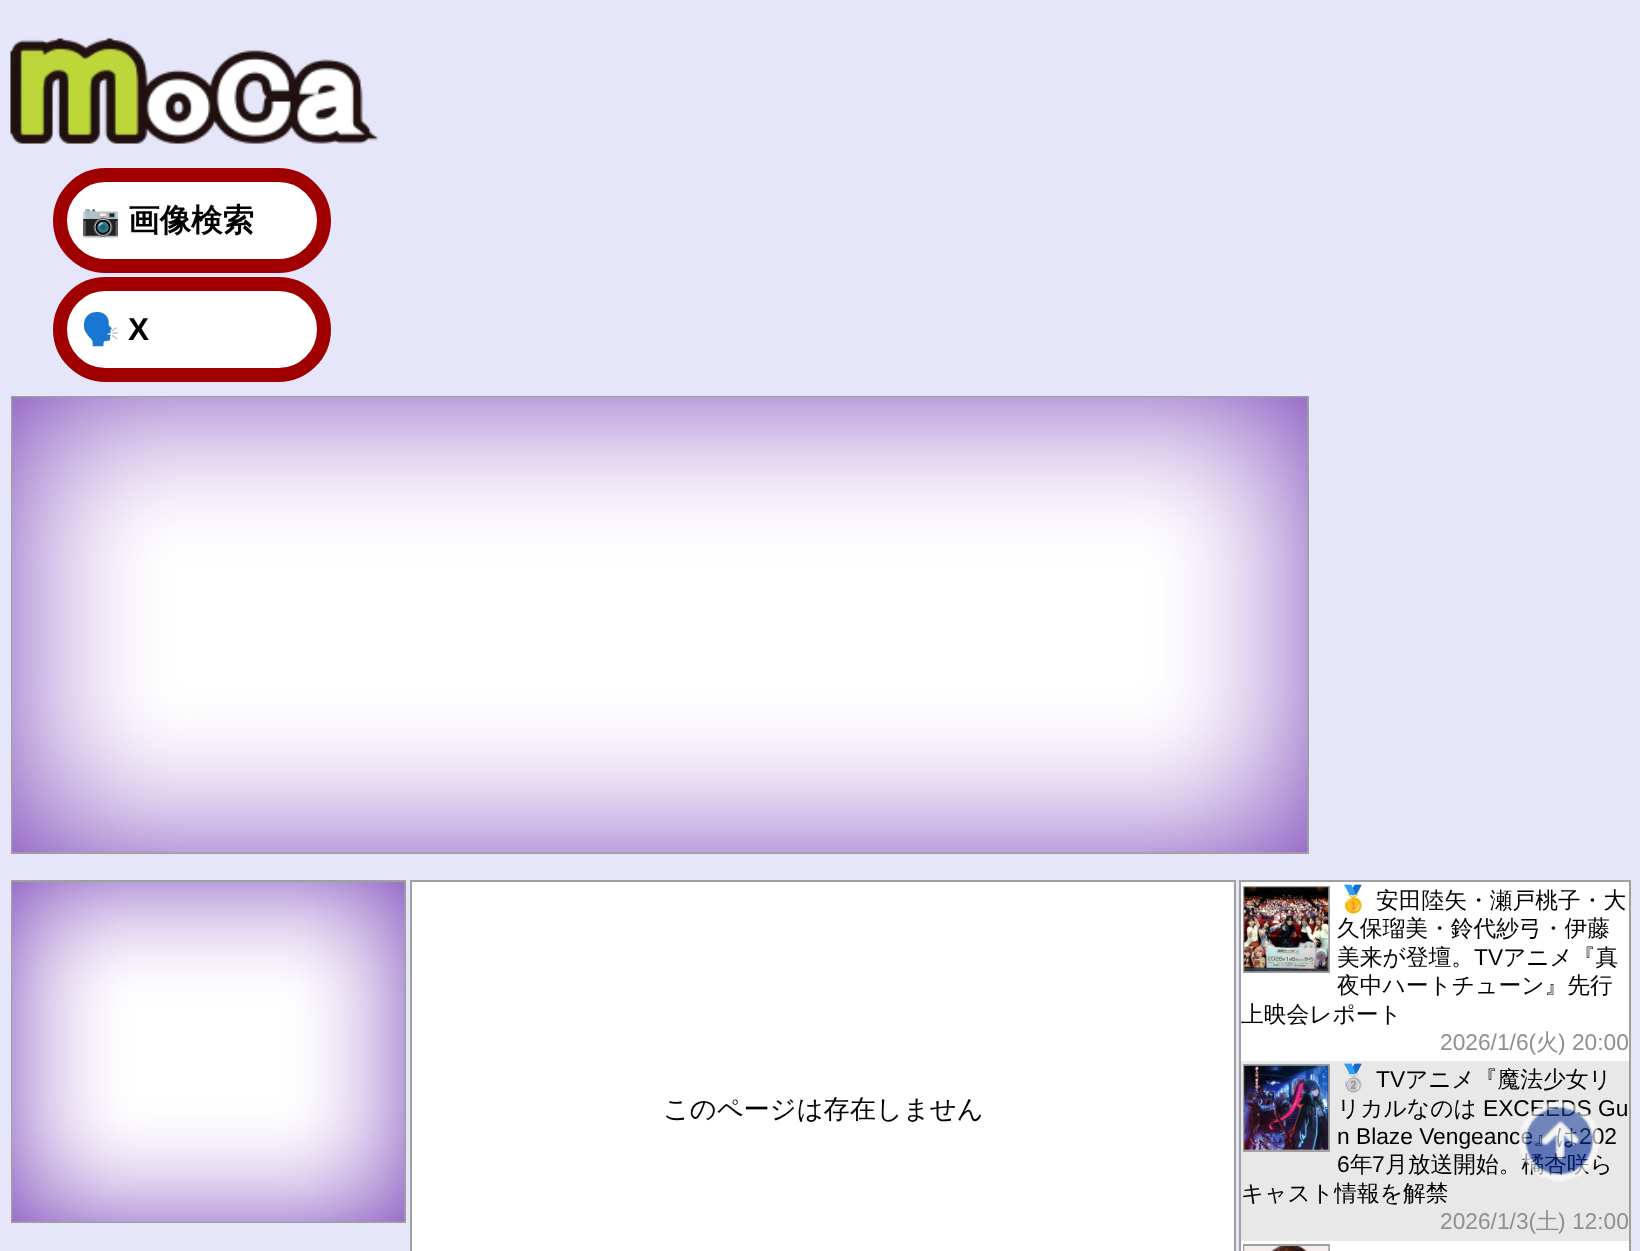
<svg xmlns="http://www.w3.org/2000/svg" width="1640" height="1251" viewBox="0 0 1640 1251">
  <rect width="100%" height="100%" fill="#e6e6fa"/>
  <image x="10" y="38" width="368" height="106" href="img/1.png"/>
  <rect x="60" y="175" width="264" height="91" rx="45.5" fill="#fff" stroke="#a00000" stroke-width="14"/>
  <rect x="60" y="284" width="264" height="91" rx="45.5" fill="#fff" stroke="#a00000" stroke-width="14"/>
  <path d="M12 397h1296v456H12z" fill="none" stroke="#a0a0a0" stroke-width="2"/>
  <image x="12" y="397" width="1296" height="456" href="img/2.png"/>
  <path d="M12 881h393v341H12z" fill="none" stroke="#a0a0a0" stroke-width="2"/>
  <image x="12" y="882" width="393" height="340" href="img/3.png"/>
  <path d="M411 881h824v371H411z" fill="#fff" stroke="#a0a0a0" stroke-width="2"/>
  <path d="M1240 881h390v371H1240z" fill="none" stroke="#a0a0a0" stroke-width="2"/>
  <path d="M1241 882h388v179H1241z" fill="#fff"/>
  <path d="M1244 887h85v85H1244z" fill="none" stroke="#a0a0a0" stroke-width="2"/>
  <image x="1244" y="887" width="85" height="85" href="img/4.png"/>
  <path d="M1241 1061h388v180H1241z" fill="#e8e8e8"/>
  <path d="M1244 1065h85v86H1244z" fill="none" stroke="#a0a0a0" stroke-width="2"/>
  <image x="1244" y="1065" width="85" height="85" href="img/5.png"/>
  <path d="M1241 1241h388v10H1241z" fill="#fff"/>
  <path d="M1244 1245h85v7H1244z" fill="none" stroke="#a0a0a0" stroke-width="2"/>
  <image x="1244" y="1246" width="85" height="5" href="img/6.png"/>
  <text x="81" y="231" font-family="Noto Color Emoji" font-size="31.5" fill="#000">📷</text>
  <text x="128" y="231" font-family="WenQuanYi Zen Hei" font-size="31.5" font-weight="bold" fill="#000">画像検索</text>
  <text x="81" y="340" font-family="Noto Color Emoji" font-size="31.5" fill="#000">🗣</text>
  <text x="128" y="340" font-family="Liberation Sans" font-size="31.5" font-weight="bold" fill="#000">X</text>
  <text x="663" y="1118" font-family="WenQuanYi Zen Hei" font-size="26.25" font-weight="500" fill="#000">このページは存在しません</text>
  <text x="1337" y="908" font-family="Noto Color Emoji" font-size="26.25" fill="#000">🥇</text>
  <g font-family="WenQuanYi Zen Hei" font-size="22.75" font-weight="500" fill="#000">
    <text x="1376" y="908">安田陸矢・瀬戸桃子・大</text>
    <text x="1337" y="936">久保瑠美・鈴代紗弓・伊藤</text>
    <text x="1337" y="965">美来が登壇。</text>
  </g>
  <text x="1474" y="965" font-family="Liberation Sans" font-size="22.75" fill="#000">TV</text>
  <g font-family="WenQuanYi Zen Hei" font-size="22.75" font-weight="500" fill="#000">
    <text x="1503" y="965">アニメ『真</text>
    <text x="1337" y="993">夜中ハートチューン』先行</text>
    <text x="1241" y="1022">上映会レポート</text>
  </g>
  <text x="1440" y="1050" font-family="Liberation Sans" font-size="22.75" fill="#909090">2026/1/6(</text>
  <text x="1536" y="1050" font-family="WenQuanYi Zen Hei" font-size="22.75" font-weight="500" fill="#909090">火</text>
  <text x="1558" y="1050" font-family="Liberation Sans" font-size="22.75" fill="#909090">) 20:00</text>
  <text x="1337" y="1087" font-family="Noto Color Emoji" font-size="26.25" fill="#000">🥈</text>
  <text x="1376" y="1087" font-family="Liberation Sans" font-size="22.75" fill="#000">TV</text>
  <g font-family="WenQuanYi Zen Hei" font-size="22.75" font-weight="500" fill="#000">
    <text x="1405" y="1087">アニメ『魔法少女リ</text>
    <text x="1337" y="1116">リカルなのは</text>
  </g>
  <g font-family="Liberation Sans" font-size="22.75" fill="#000">
    <text x="1483" y="1116">EXCEEDS Gu</text>
    <text x="1337" y="1144">n Blaze Vengeance</text>
  </g>
  <text x="1533" y="1144" font-family="WenQuanYi Zen Hei" font-size="22.75" font-weight="500" fill="#000">』は</text>
  <g font-family="Liberation Sans" font-size="22.75" fill="#000">
    <text x="1579" y="1144">202</text>
    <text x="1337" y="1172">6</text>
  </g>
  <text x="1350" y="1172" font-family="WenQuanYi Zen Hei" font-size="22.75" font-weight="500" fill="#000">年</text>
  <text x="1372" y="1172" font-family="Liberation Sans" font-size="22.75" fill="#000">7</text>
  <g font-family="WenQuanYi Zen Hei" font-size="22.75" font-weight="500" fill="#000">
    <text x="1385" y="1172">月放送開始。橘杏咲ら</text>
    <text x="1241" y="1201">キャスト情報を解禁</text>
  </g>
  <text x="1440" y="1229" font-family="Liberation Sans" font-size="22.75" fill="#909090">2026/1/3(</text>
  <text x="1536" y="1229" font-family="WenQuanYi Zen Hei" font-size="22.75" font-weight="500" fill="#909090">土</text>
  <text x="1558" y="1229" font-family="Liberation Sans" font-size="22.75" fill="#909090">) 12:00</text>
  <image x="1519" y="1100" width="81" height="82" href="img/7.png"/>
</svg>
